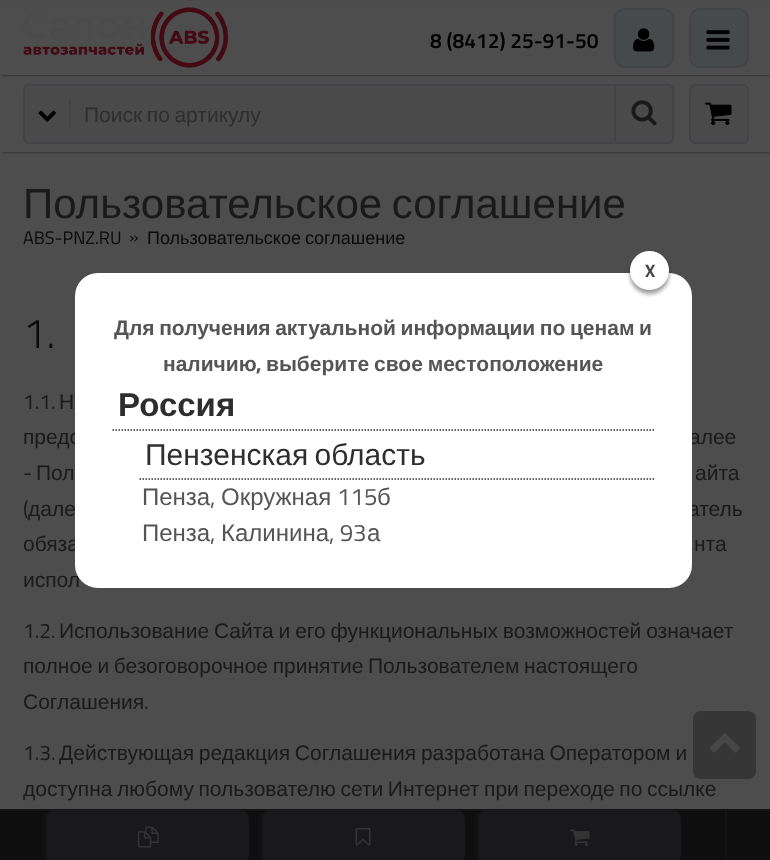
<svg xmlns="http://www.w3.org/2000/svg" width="770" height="860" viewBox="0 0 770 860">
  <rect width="100%" height="100%" fill="#4d4d4d"/>
  <path d="M2 78h768v74H2z" fill="#00000099" filter="blur(1.5px)"/>
  <path d="M0 76h770v76H0z" fill="#4d4d4d"/>
  <path d="M2 3h768v72H2z" fill="#00000099" filter="blur(1.5px)"/>
  <path d="M0 1h770v74H0z" fill="#4d4d4d"/>
  <image x="23" y="7" width="205" height="61" href="img/1.png"/>
  <rect x="615" y="9" width="58" height="58" rx="10" fill="#474a4b" stroke="#424447" stroke-width="2"/>
  <image x="633" y="28" width="22" height="24" href="img/2.png"/>
  <rect x="690" y="9" width="58" height="58" rx="10" fill="#474a4b" stroke="#424447" stroke-width="2"/>
  <image x="706" y="30" width="24" height="20" href="img/3.png"/>
  <rect x="24" y="85" width="649" height="58" rx="5" fill="#4a4a4b" stroke="#424447" stroke-width="2"/>
  <image x="38" y="110" width="18" height="12" href="img/4.png"/>
  <path d="M69 99h2v30H69z" fill="#424447"/>
  <path d="M614 84h2v60H614z" fill="#424447"/>
  <image x="631" y="100" width="26" height="26" href="img/5.png"/>
  <rect x="690" y="85" width="58" height="58" rx="5" fill="#4a4a4b" stroke="#424447" stroke-width="2"/>
  <image x="705" y="102" width="27" height="23" href="img/6.png"/>
  <rect x="693" y="711" width="63" height="68" rx="8" fill="#363636"/>
  <image x="709" y="733" width="31" height="20" href="img/7.png"/>
  <path d="M0 811h770v49H0z" fill="#0f0f0f"/>
  <path d="M0 809h770v2H0z" fill="#141414"/>
  <path d="M725 810h2v50H725z" fill="#141414"/>
  <rect x="45" y="810" width="204" height="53" rx="9" fill="#19191c"/>
  <path d="M45 815h2v43H45z" fill="#141414"/>
  <image x="137" y="826" width="22" height="22" href="img/8.png"/>
  <rect x="261" y="810" width="204" height="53" rx="9" fill="#19191c"/>
  <path d="M261 815h2v43H261z" fill="#141414"/>
  <image x="355" y="828" width="16" height="18" href="img/9.png"/>
  <rect x="477" y="810" width="204" height="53" rx="9" fill="#19191c"/>
  <path d="M477 815h2v43H477z" fill="#141414"/>
  <image x="570" y="829" width="20" height="17" href="img/10.png"/>
  <text x="430" y="48" font-family="Titillium Web" font-size="21" font-weight="600" fill="#000">8 (8412) 25-91-50</text>
  <text x="84" y="122" word-spacing="-1.25" font-family="Liberation Sans" font-size="21" fill="#2e2e2e">Поиск по артикулу</text>
  <text x="23" y="218" word-spacing="-2" font-family="Liberation Sans" font-size="42" fill="#1a1a1a">Пользовательское соглашение</text>
  <g font-family="Titillium Web" font-size="18" fill="#0a0a0a">
    <text x="23" y="244">ABS-PNZ.RU</text>
    <text x="129" y="243">»</text>
  </g>
  <text x="147" y="244" word-spacing="-1" font-family="Liberation Sans" font-size="18" fill="#0a0a0a">Пользовательское соглашение</text>
  <text x="23" y="348" font-family="Titillium Web" font-size="42" font-weight="300" fill="#0a0a0a">1.</text>
  <text x="23" y="409" font-family="Titillium Web" font-size="21" fill="#1a1a1a">1.1.</text>
  <g font-family="Liberation Sans" font-size="21" fill="#1a1a1a">
    <text x="59" y="409">Н</text>
    <text x="23" y="444" word-spacing="-1">предс</text>
    <text x="689" y="444">алее</text>
  </g>
  <text x="23" y="480" font-family="Titillium Web" font-size="21" fill="#1a1a1a">-</text>
  <g font-family="Liberation Sans" font-size="21" fill="#1a1a1a">
    <text x="36" y="480">Пол</text>
    <text x="695" y="480">айта</text>
  </g>
  <text x="23" y="516" font-family="Titillium Web" font-size="21" fill="#1a1a1a">(</text>
  <g font-family="Liberation Sans" font-size="21" fill="#1a1a1a">
    <text x="28" y="516">дале</text>
    <text x="688" y="516">атель</text>
    <text x="23" y="551" word-spacing="-1.25">обяза</text>
    <text x="694" y="551" word-spacing="-1.25">нта</text>
    <text x="23" y="587" word-spacing="-1.25">испол</text>
  </g>
  <text x="23" y="638" font-family="Titillium Web" font-size="21" fill="#1a1a1a">1.2.</text>
  <g font-family="Liberation Sans" font-size="21" fill="#1a1a1a">
    <text x="59" y="638" word-spacing="-1">Использование Сайта и его функциональных возможностей означает</text>
    <text x="23" y="673" word-spacing="-1.25">полное и безоговорочное принятие Пользователем настоящего</text>
    <text x="23" y="709">Соглашения</text>
  </g>
  <g font-family="Titillium Web" font-size="21" fill="#1a1a1a">
    <text x="144" y="709">.</text>
    <text x="23" y="760">1.3.</text>
  </g>
  <g font-family="Liberation Sans" font-size="21" fill="#1a1a1a">
    <text x="59" y="760" word-spacing="-1">Действующая редакция Соглашения разработана Оператором и</text>
    <text x="23" y="796" word-spacing="-1.25">доступна любому пользователю сети Интернет при переходе по ссылке</text>
  </g>
  <rect x="79" y="277" width="609" height="307" rx="19" fill="#fff" stroke="#fff" stroke-width="8"/>
  <rect x="630" y="255" width="39" height="39" rx="19.5" fill="#00000066" filter="blur(2px)"/>
  <circle cx="649.5" cy="270.5" r="15.5" fill="#fff" stroke="#fff" stroke-width="8"/>
  <text x="645" y="277" font-family="Titillium Web" font-size="18" font-weight="bold" fill="#444">X</text>
  <g font-family="Liberation Sans" font-size="21" font-weight="bold" fill="#555">
    <text x="114" y="335" word-spacing="-1.25">Для получения актуальной информации по ценам и</text>
    <text x="163" y="371">наличию</text>
  </g>
  <text x="256" y="371" font-family="Titillium Web" font-size="21" font-weight="bold" fill="#555">,</text>
  <text x="266" y="371" word-spacing="-1" font-family="Liberation Sans" font-size="21" font-weight="bold" fill="#555">выберите свое местоположение</text>
  <path d="M112.5 430H654" fill="none" stroke="#313131" stroke-width="1.5" stroke-dasharray="1.5 1.5"/>
  <text x="118" y="416" font-family="Liberation Sans" font-size="33" font-weight="bold" fill="#2e2e2e">Россия</text>
  <path d="M139.5 479H654" fill="none" stroke="#313131" stroke-width="1.5" stroke-dasharray="1.5 1.5"/>
  <text x="145" y="465" word-spacing="-2" font-family="Liberation Sans" font-size="30" fill="#2e2e2e">Пензенская область</text>
  <text x="142" y="505" font-family="Liberation Sans" font-size="24" fill="#555">Пенза</text>
  <text x="210" y="505" font-family="Titillium Web" font-size="24" fill="#555">,</text>
  <text x="221" y="505" font-family="Liberation Sans" font-size="24" fill="#555">Окружная</text>
  <text x="337" y="505" font-family="Titillium Web" font-size="24" fill="#555">115</text>
  <g font-family="Liberation Sans" font-size="24" fill="#555">
    <text x="377" y="505">б</text>
    <text x="142" y="541">Пенза</text>
  </g>
  <text x="210" y="541" font-family="Titillium Web" font-size="24" fill="#555">,</text>
  <text x="221" y="541" font-family="Liberation Sans" font-size="24" fill="#555">Калинина</text>
  <text x="329" y="541" font-family="Titillium Web" font-size="24" fill="#555">, 93</text>
  <text x="367" y="541" font-family="Liberation Sans" font-size="24" fill="#555">а</text>
</svg>
